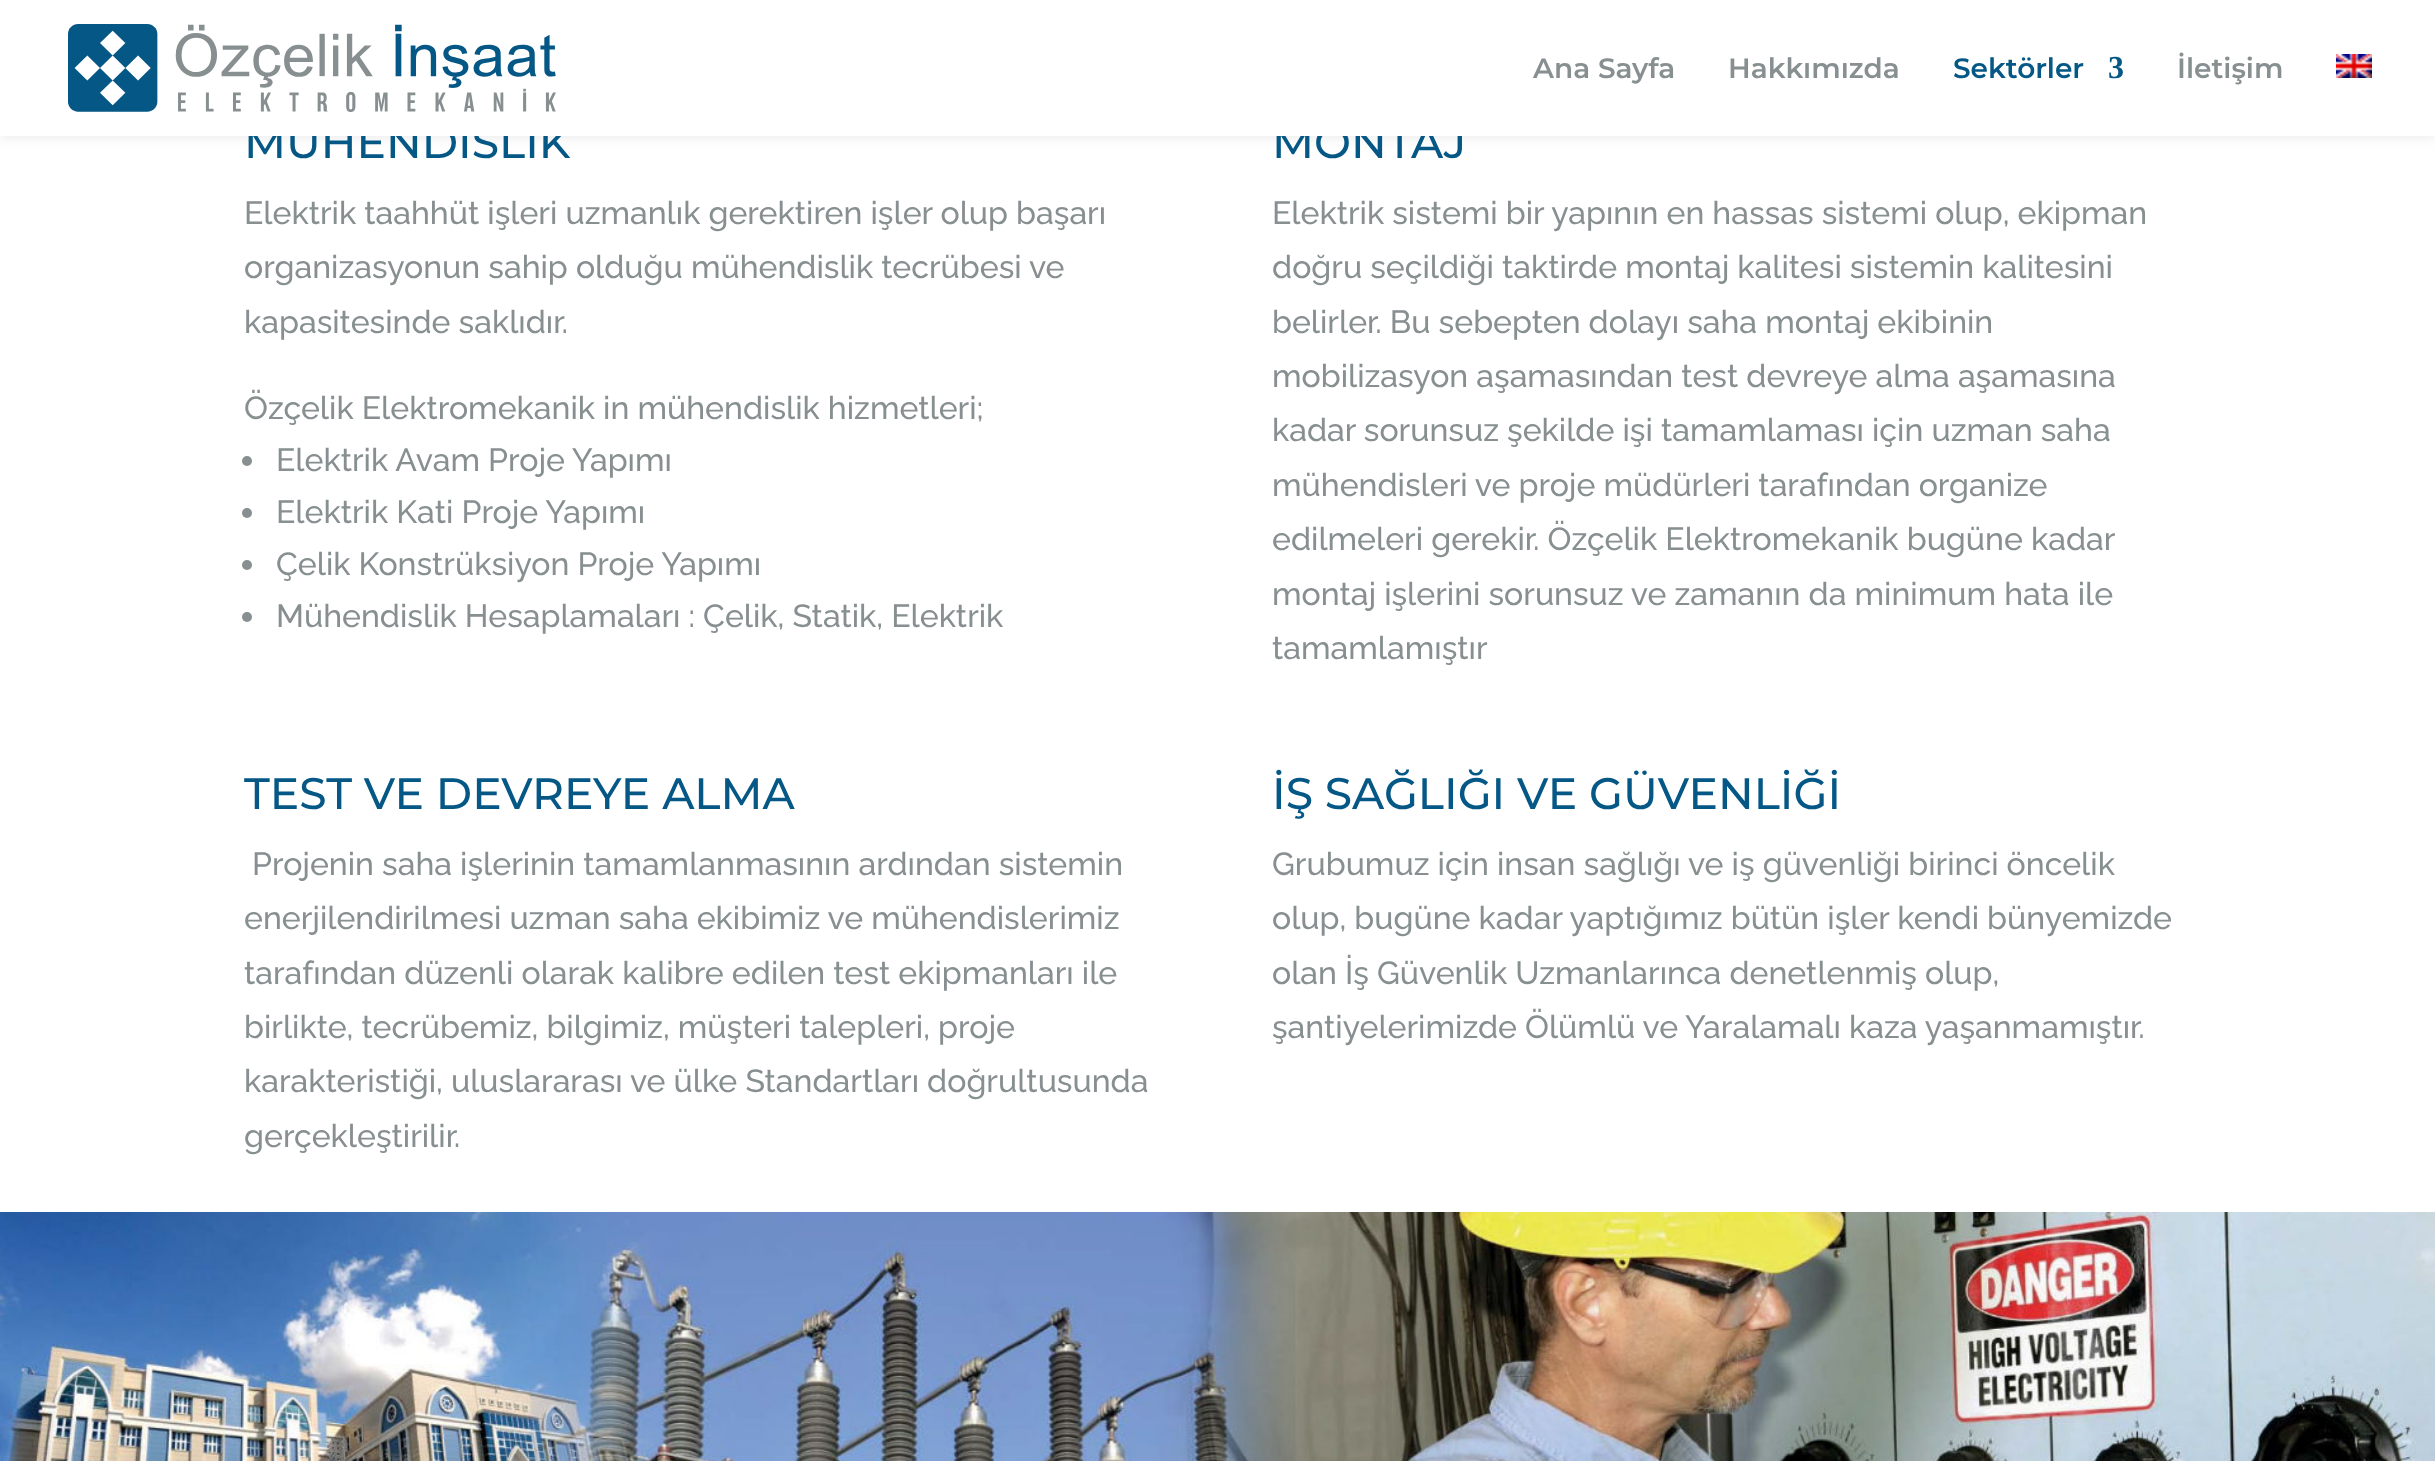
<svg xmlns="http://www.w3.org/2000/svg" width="2435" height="1461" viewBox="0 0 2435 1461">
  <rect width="100%" height="100%" fill="#fff"/>
  <path d="M0 0h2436v136H0z" fill="#0000001a" filter="blur(7px)"/>
  <circle cx="247" cy="461" r="5" fill="#878f91"/>
  <circle cx="247" cy="513" r="5" fill="#878f91"/>
  <circle cx="247" cy="565" r="5" fill="#878f91"/>
  <circle cx="247" cy="617" r="5" fill="#878f91"/>
  <image x="0" y="1212" width="2435" height="249" href="img/3.png"/>
  <text x="244" y="158" font-family="Montserrat" font-size="44" font-weight="100" fill="#055785">MÜHENDİSLİK</text>
  <g font-family="Raleway" font-size="32" font-weight="100" fill="#878f91">
    <text x="244" y="224">Elektrik taahhüt işleri uzmanlık gerektiren işler olup başarı</text>
    <text x="244" y="278">organizasyonun sahip olduğu mühendislik tecrübesi ve</text>
    <text x="244" y="333">kapasitesinde saklıdır.</text>
    <text x="244" y="419">Özçelik Elektromekanik in mühendislik hizmetleri;</text>
    <text x="276" y="471">Elektrik Avam Proje Yapımı</text>
    <text x="276" y="523">Elektrik Kati Proje Yapımı</text>
    <text x="276" y="575">Çelik Konstrüksiyon Proje Yapımı</text>
    <text x="276" y="627">Mühendislik Hesaplamaları : Çelik, Statik, Elektrik</text>
  </g>
  <text x="1272" y="158" font-family="Montserrat" font-size="44" font-weight="100" fill="#055785">MONTAJ</text>
  <path d="M0 0h2435v136H0z" fill="#fff"/>
  <image x="2336" y="54" width="36" height="24" href="img/2.png"/>
  <text x="2177" y="78" font-family="'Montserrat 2'" font-size="28" font-weight="100" fill="#878f91">İletişim</text>
  <text x="2108" y="78" font-family="Liberation Serif" font-size="32" font-weight="bold" fill="#055785">3</text>
  <text x="1953" y="78" font-family="'Montserrat 2'" font-size="28" font-weight="100" fill="#055785">Sektörler</text>
  <g font-family="'Montserrat 2'" font-size="28" font-weight="100" fill="#878f91">
    <text x="1728" y="78">Hakkımızda</text>
    <text x="1533" y="78">Ana Sayfa</text>
  </g>
  <image x="68" y="24" width="488" height="88" href="img/1.png"/>
  <g font-family="Raleway" font-size="32" font-weight="100" fill="#878f91">
    <text x="1272" y="224">Elektrik sistemi bir yapının en hassas sistemi olup, ekipman</text>
    <text x="1272" y="278">doğru seçildiği taktirde montaj kalitesi sistemin kalitesini</text>
    <text x="1272" y="333">belirler. Bu sebepten dolayı saha montaj ekibinin</text>
    <text x="1272" y="387">mobilizasyon aşamasından test devreye alma aşamasına</text>
    <text x="1272" y="441">kadar sorunsuz şekilde işi tamamlaması için uzman saha</text>
    <text x="1272" y="496">mühendisleri ve proje müdürleri tarafından organize</text>
    <text x="1272" y="550">edilmeleri gerekir. Özçelik Elektromekanik bugüne kadar</text>
    <text x="1272" y="605">montaj işlerini sorunsuz ve zamanın da minimum hata ile</text>
    <text x="1272" y="659">tamamlamıştır</text>
  </g>
  <text x="244" y="809" font-family="Montserrat" font-size="44" font-weight="100" fill="#055785">TEST VE DEVREYE ALMA</text>
  <g font-family="Raleway" font-size="32" font-weight="100" fill="#878f91">
    <text x="252" y="875">Projenin saha işlerinin tamamlanmasının ardından sistemin</text>
    <text x="244" y="929">enerjilendirilmesi uzman saha ekibimiz ve mühendislerimiz</text>
    <text x="244" y="984">tarafından düzenli olarak kalibre edilen test ekipmanları ile</text>
    <text x="244" y="1038">birlikte, tecrübemiz, bilgimiz, müşteri talepleri, proje</text>
    <text x="244" y="1092">karakteristiği, uluslararası ve ülke Standartları doğrultusunda</text>
    <text x="244" y="1147">gerçekleştirilir.</text>
  </g>
  <text x="1272" y="809" font-family="Montserrat" font-size="44" font-weight="100" fill="#055785">İŞ SAĞLIĞI VE GÜVENLİĞİ</text>
  <g font-family="Raleway" font-size="32" font-weight="100" fill="#878f91">
    <text x="1272" y="875">Grubumuz için insan sağlığı ve iş güvenliği birinci öncelik</text>
    <text x="1272" y="929">olup, bugüne kadar yaptığımız bütün işler kendi bünyemizde</text>
    <text x="1272" y="984">olan İş Güvenlik Uzmanlarınca denetlenmiş olup,</text>
    <text x="1272" y="1038">şantiyelerimizde Ölümlü ve Yaralamalı kaza yaşanmamıştır.</text>
  </g>
</svg>
